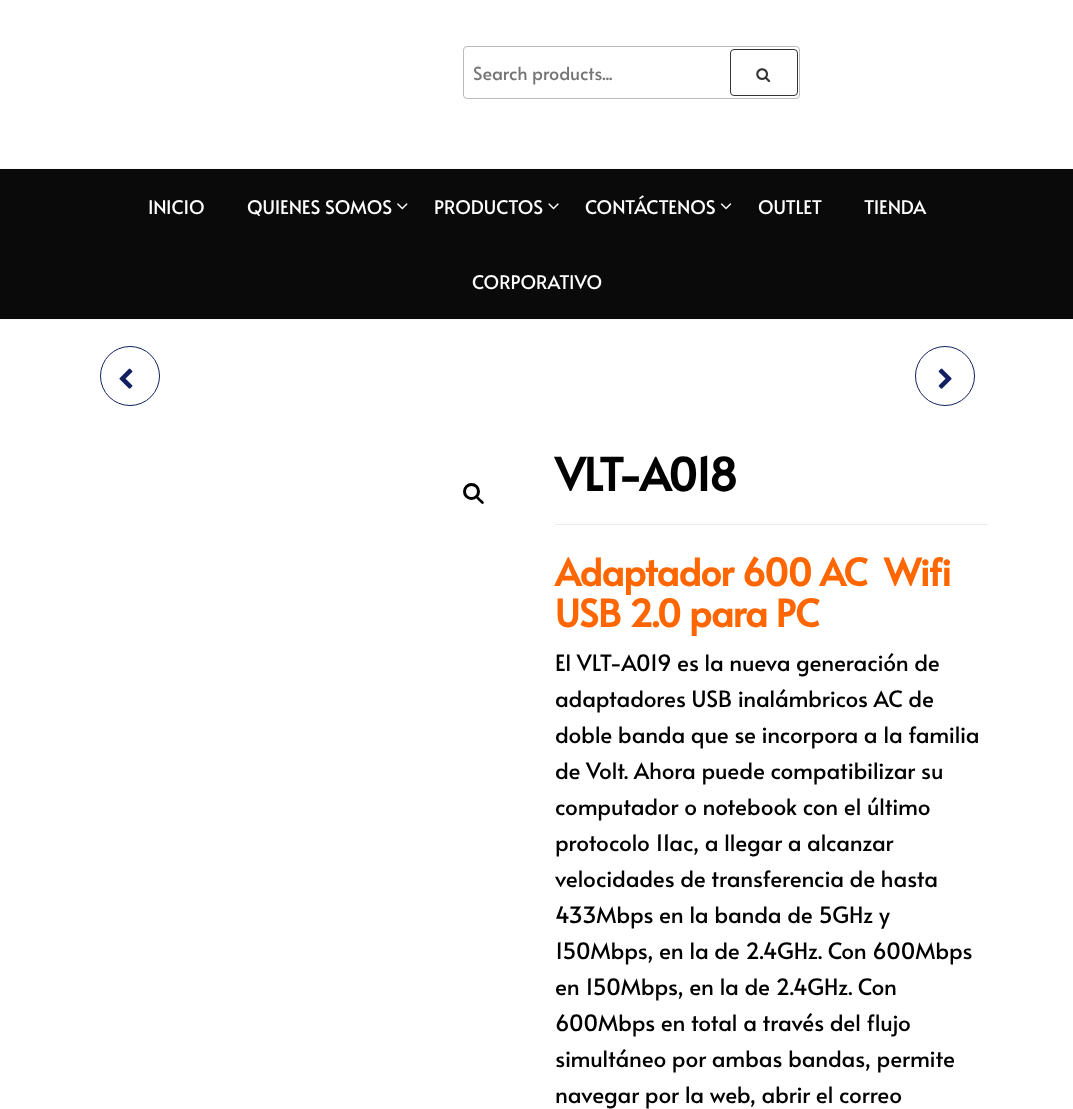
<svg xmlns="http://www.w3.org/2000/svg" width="1073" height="1109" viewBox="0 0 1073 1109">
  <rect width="100%" height="100%" fill="#fff"/>
  <rect x="463.5" y="46.5" width="336" height="52" rx="3.5" fill="none" stroke="#bbb"/>
  <rect x="730.5" y="49.5" width="67" height="46" rx="3.5" fill="none" stroke="#333"/>
  <image x="756" y="68" width="15" height="15" href="img/1.png"/>
  <path d="M0 169h1073v150H0z" fill="#0a0a0a"/>
  <path d="M0 168h1073v1H0z" fill="#f9f9f9"/>
  <path d="M0 319h1073v1H0z" fill="#f9f9f9"/>
  <image x="397" y="203" width="11" height="7" href="img/2.png"/>
  <image x="548" y="203" width="11" height="7" href="img/3.png"/>
  <image x="720" y="203" width="12" height="7" href="img/4.png"/>
  <circle cx="130" cy="376" r="29.5" fill="none" stroke="#122061"/>
  <image x="119" y="368" width="14" height="21" href="img/5.png"/>
  <circle cx="945" cy="376" r="29.5" fill="none" stroke="#122061"/>
  <image x="938" y="368" width="14" height="21" href="img/6.png"/>
  <circle cx="471.5" cy="491.5" r="7" fill="none" stroke="#000" stroke-width="3"/>
  <path d="M476.5 496.5C478 495 480 498.5 481 499.5C482 500 485 502.5 483.5 503.5C482 505 480 502 479 501C478.5 500.5 475 498 476.5 496.5Z" fill="#000"/>
  <path d="M555 524h433v1H555z" fill="#eaeaea"/>
  <text x="473" y="80" font-family="Alata" font-size="18" fill="#757575">Search products...</text>
  <g font-family="Alata" font-size="18.75" fill="#fff">
    <text x="148" y="214">INICIO</text>
    <text x="247" y="214">QUIENES SOMOS</text>
    <text x="434" y="214">PRODUCTOS</text>
    <text x="585" y="214">CONTÁCTENOS</text>
    <text x="758" y="214">OUTLET</text>
    <text x="864" y="214">TIENDA</text>
    <text x="472" y="289">CORPORATIVO</text>
  </g>
  <text x="555" y="491" font-family="Alata" font-size="45" font-weight="bold" letter-spacing="-1" fill="#000">VLT-A018</text>
  <g font-family="Alata" font-size="37.5" font-weight="bold" letter-spacing="-0.75" fill="#f60">
    <text x="555" y="586">Adaptador 600 AC</text>
    <text x="884" y="586">Wifi</text>
    <text x="555" y="627">USB 2.0 para PC</text>
  </g>
  <g font-family="Alata" font-size="22.5" fill="#000">
    <text x="555" y="671">El VLT-A019 es la nueva generación de</text>
    <text x="555" y="707">adaptadores USB inalámbricos AC de</text>
    <text x="555" y="743">doble banda que se incorpora a la familia</text>
    <text x="555" y="779">de Volt. Ahora puede compatibilizar su</text>
    <text x="555" y="815">computador o notebook con el último</text>
    <text x="555" y="851">protocolo 11ac, a llegar a alcanzar</text>
    <text x="555" y="887">velocidades de transferencia de hasta</text>
    <text x="555" y="923">433Mbps en la banda de 5GHz y</text>
    <text x="555" y="959">150Mbps, en la de 2.4GHz. Con 600Mbps</text>
    <text x="555" y="995">en 150Mbps, en la de 2.4GHz. Con</text>
    <text x="555" y="1031">600Mbps en total a través del flujo</text>
    <text x="555" y="1067">simultáneo por ambas bandas, permite</text>
    <text x="555" y="1103">navegar por la web, abrir el correo</text>
  </g>
</svg>
